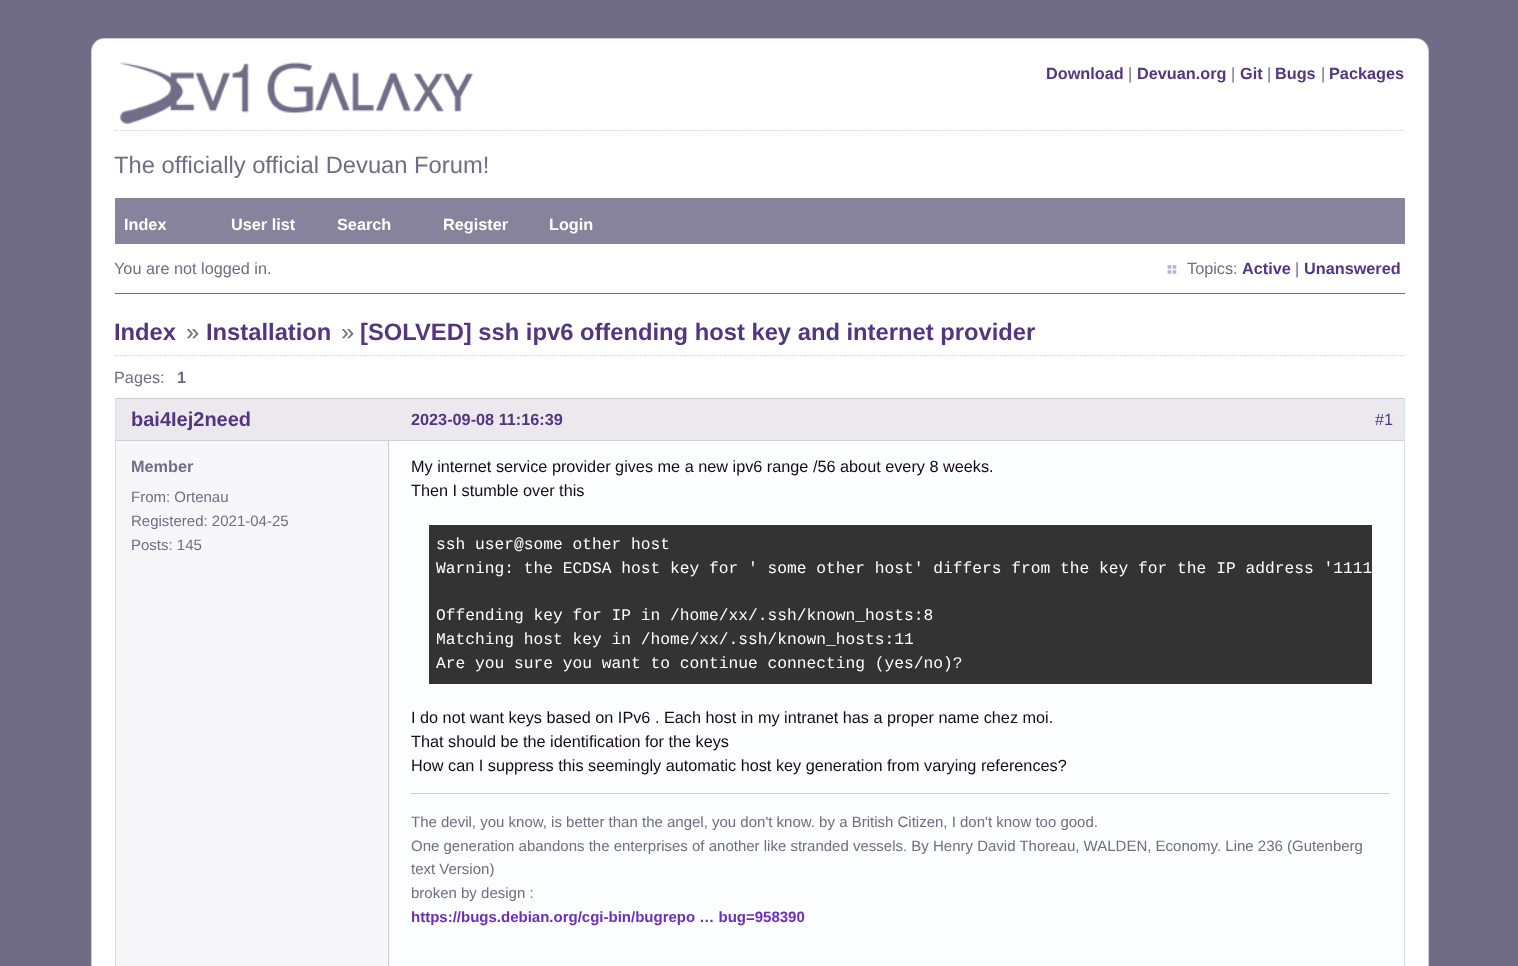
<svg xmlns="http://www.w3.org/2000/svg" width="1518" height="966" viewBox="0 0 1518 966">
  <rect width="100%" height="100%" fill="#716c85"/>
  <rect x="91.5" y="38.5" width="1337" height="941" rx="12.5" fill="#fff" stroke="#d0cdd7"/>
  <image x="119" y="62" width="354" height="62" href="img/1.png"/>
  <path d="M115 130.5H1405" fill="none" stroke="#d0cdd7" stroke-width="1.2" stroke-dasharray="1.25 1.25"/>
  <path d="M115 198h1290v46H115z" fill="#88839c"/>
  <image x="1167" y="265" width="10" height="9" href="img/2.png"/>
  <path d="M115 293h1290v1H115z" fill="#716c85"/>
  <path d="M115 355.5H1405" fill="none" stroke="#d0cdd7" stroke-width="1.2" stroke-dasharray="1.25 1.25"/>
  <path d="M116 441h272v525H116z" fill="#f7f7fa"/>
  <path d="M115 398h1290v1H115z" fill="#d0cdd7"/>
  <path d="M1404 398h1v568H1404z" fill="#d9e1e7"/>
  <path d="M115 398h1v568H115z" fill="#d9e1e7"/>
  <path d="M389 441h1015v525H389z" fill="#fcfdfe"/>
  <path d="M388 441h1v525H388z" fill="#d0cdd7"/>
  <path d="M428.5 524.5h944v160H428.5z" fill="#333" stroke="#fff"/>
  <path d="M411 793h978v1H411z" fill="#d0cdd7"/>
  <path d="M116 399h1288v41H116z" fill="#ebe9ed"/>
  <path d="M116 440h1288v1H116z" fill="#d0cdd7"/>
  <text x="1046" y="79" font-family="Liberation Sans" font-size="16.25" font-weight="bold" fill="#533582">Download</text>
  <text x="1128" y="79" font-family="Liberation Sans" font-size="16.25" fill="#716c85">|</text>
  <text x="1137" y="79" font-family="Liberation Sans" font-size="16.25" font-weight="bold" fill="#533582">Devuan.org</text>
  <text x="1231" y="79" font-family="Liberation Sans" font-size="16.25" fill="#716c85">|</text>
  <text x="1240" y="79" font-family="Liberation Sans" font-size="16.25" font-weight="bold" fill="#533582">Git</text>
  <text x="1267" y="79" font-family="Liberation Sans" font-size="16.25" fill="#716c85">|</text>
  <text x="1275" y="79" font-family="Liberation Sans" font-size="16.25" font-weight="bold" fill="#533582">Bugs</text>
  <text x="1321" y="79" font-family="Liberation Sans" font-size="16.25" fill="#716c85">|</text>
  <text x="1329" y="79" font-family="Liberation Sans" font-size="16.25" font-weight="bold" fill="#533582">Packages</text>
  <text x="114" y="173" font-family="Liberation Sans" font-size="23.75" fill="#716c85">The officially official Devuan Forum!</text>
  <g font-family="Liberation Sans" font-size="16.25" font-weight="bold" fill="#fff">
    <text x="124" y="230">Index</text>
    <text x="231" y="230">User list</text>
    <text x="337" y="230">Search</text>
    <text x="443" y="230">Register</text>
    <text x="549" y="230">Login</text>
  </g>
  <g font-family="Liberation Sans" font-size="16.25" fill="#716c85">
    <text x="114" y="274">You are not logged in.</text>
    <text x="1187" y="274">Topics:</text>
  </g>
  <text x="1242" y="274" font-family="Liberation Sans" font-size="16.25" font-weight="bold" fill="#533582">Active</text>
  <text x="1295" y="274" font-family="Liberation Sans" font-size="16.25" fill="#716c85">|</text>
  <text x="1304" y="274" font-family="Liberation Sans" font-size="16.25" font-weight="bold" fill="#533582">Unanswered</text>
  <text x="114" y="340" font-family="Liberation Sans" font-size="23.75" font-weight="bold" fill="#533582">Index</text>
  <text x="186" y="340" font-family="Liberation Sans" font-size="23.75" fill="#716c85">»</text>
  <text x="206" y="340" font-family="Liberation Sans" font-size="23.75" font-weight="bold" fill="#533582">Installation</text>
  <text x="341" y="340" font-family="Liberation Sans" font-size="23.75" fill="#716c85">»</text>
  <text x="360" y="340" font-family="Liberation Sans" font-size="23.75" font-weight="bold" fill="#533582">[SOLVED] ssh ipv6 offending host key and internet provider</text>
  <text x="114" y="383" font-family="Liberation Sans" font-size="16.25" fill="#716c85">Pages:</text>
  <text x="177" y="383" font-family="Liberation Sans" font-size="16.25" font-weight="bold" fill="#716c85">1</text>
  <text x="131" y="426" font-family="Liberation Sans" font-size="20" font-weight="bold" fill="#533582">bai4Iej2need</text>
  <text x="131" y="472" font-family="Liberation Sans" font-size="16.25" font-weight="bold" fill="#716c85">Member</text>
  <g font-family="Liberation Sans" font-size="15" fill="#716c85">
    <text x="131" y="502">From: Ortenau</text>
    <text x="131" y="526">Registered: 2021-04-25</text>
    <text x="131" y="550">Posts: 145</text>
  </g>
  <g font-family="Liberation Sans" font-size="16.25" fill="#150a1c">
    <text x="411" y="472">My internet service provider gives me a new ipv6 range /56 about every 8 weeks.</text>
    <text x="411" y="496">Then I stumble over this</text>
  </g>
  <g font-family="Liberation Mono" font-size="16.25" fill="#fff">
    <text x="436" y="549">ssh user@some other host</text>
    <text x="436" y="573">Warning: the ECDSA host key for ' some other host' differs from the key for the IP address '1111</text>
    <text x="436" y="620">Offending key for IP in /home/xx/.ssh/known_hosts:8</text>
    <text x="436" y="644">Matching host key in /home/xx/.ssh/known_hosts:11</text>
    <text x="436" y="668">Are you sure you want to continue connecting (yes/no)?</text>
  </g>
  <g font-family="Liberation Sans" font-size="16.25" fill="#150a1c">
    <text x="411" y="723">I do not want keys based on IPv6 . Each host in my intranet has a proper name chez moi.</text>
    <text x="411" y="747">That should be the identification for the keys</text>
    <text x="411" y="771">How can I suppress this seemingly automatic host key generation from varying references?</text>
  </g>
  <g font-family="Liberation Sans" font-size="15" fill="#716c85">
    <text x="411" y="827">The devil, you know, is better than the angel, you don't know. by a British Citizen, I don't know too good.</text>
    <text x="411" y="851">One generation abandons the enterprises of another like stranded vessels. By Henry David Thoreau, WALDEN, Economy. Line 236 (Gutenberg</text>
    <text x="411" y="874">text Version)</text>
    <text x="411" y="898">broken by design :</text>
  </g>
  <text x="411" y="922" font-family="Liberation Sans" font-size="15" font-weight="bold" fill="#6a2fbd">https://bugs.debian.org/cgi-bin/bugrepo … bug=958390</text>
  <text x="411" y="425" font-family="Liberation Sans" font-size="16.25" font-weight="bold" fill="#533582">2023-09-08 11:16:39</text>
  <text x="1375" y="425" font-family="Liberation Sans" font-size="16.25" fill="#533582">#1</text>
</svg>
